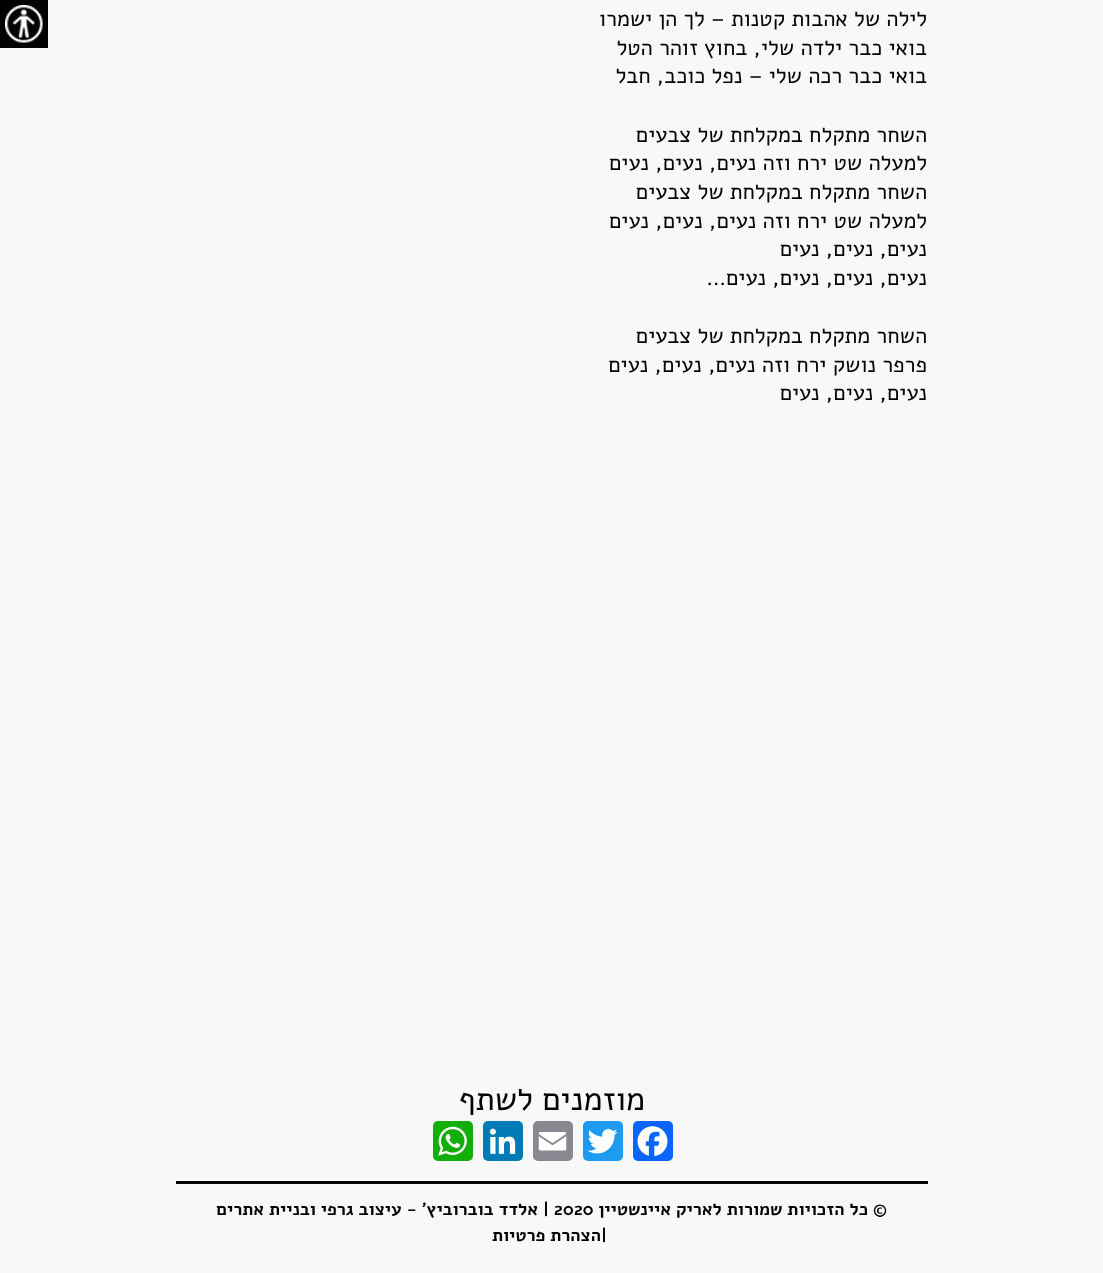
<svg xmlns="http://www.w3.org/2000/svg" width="1103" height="1273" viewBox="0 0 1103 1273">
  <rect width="100%" height="100%" fill="#f8f8f8"/>
  <rect x="633" y="1121" width="40" height="40" rx="5" fill="#0866ff"/>
  <image x="637" y="1126" width="31" height="31" href="img/1.png"/>
  <rect x="583" y="1121" width="40" height="40" rx="5" fill="#1d9bf0"/>
  <image x="587" y="1129" width="31" height="25" href="img/2.png"/>
  <rect x="533" y="1121" width="40" height="40" rx="5" fill="#888990"/>
  <image x="538" y="1132" width="29" height="19" href="img/3.png"/>
  <rect x="483" y="1121" width="40" height="40" rx="5" fill="#007bb5"/>
  <image x="489" y="1128" width="27" height="26" href="img/4.png"/>
  <rect x="433" y="1121" width="40" height="40" rx="5" fill="#12af0a"/>
  <image x="438" y="1126" width="29" height="30" href="img/5.png"/>
  <path d="M176 1181h752v3H176z" fill="#040402"/>
  <path d="M0 0h48v48H0z" fill="#000"/>
  <image x="5" y="5" width="38" height="38" href="img/6.png"/>
  <g font-family="Alef" font-size="22" direction="rtl" fill="#040402">
    <text x="927" y="26">לילה של אהבות קטנות – לך הן ישמרו</text>
    <text x="927" y="55">בואי כבר ילדה שלי, בחוץ זוהר הטל</text>
    <text x="927" y="83">בואי כבר רכה שלי – נפל כוכב, חבל</text>
    <text x="927" y="142">השחר מתקלח במקלחת של צבעים</text>
    <text x="927" y="170">למעלה שט ירח וזה נעים, נעים, נעים</text>
    <text x="927" y="199">השחר מתקלח במקלחת של צבעים</text>
    <text x="927" y="228">למעלה שט ירח וזה נעים, נעים, נעים</text>
    <text x="927" y="256">נעים, נעים, נעים</text>
    <text x="927" y="285">נעים, נעים, נעים, נעים…</text>
    <text x="927" y="343">השחר מתקלח במקלחת של צבעים</text>
    <text x="927" y="372">פרפר נושק ירח וזה נעים, נעים, נעים</text>
    <text x="927" y="400">נעים, נעים, נעים</text>
  </g>
  <text x="645" y="1110" font-family="Alef" font-size="32.5" direction="rtl" fill="#040402">מוזמנים לשתף</text>
  <text x="887" y="1215" font-family="Alef" font-size="17.5" font-weight="bold" direction="rtl" fill="#040402">© כל הזכויות שמורות לאריק איינשטיין</text>
  <text x="543" y="1215" font-family="Alef" font-size="17.5" font-weight="bold" fill="#040402">| 2020</text>
  <text x="538" y="1215" font-family="Alef" font-size="17.5" font-weight="bold" direction="rtl" fill="#040402">אלדד בוברוביץ' - עיצוב גרפי ובניית אתרים</text>
  <text x="601" y="1241" font-family="Alef" font-size="17.5" font-weight="bold" fill="#040402">|</text>
  <text x="601" y="1241" font-family="Alef" font-size="17.5" font-weight="bold" direction="rtl" fill="#040402">הצהרת פרטיות</text>
</svg>
